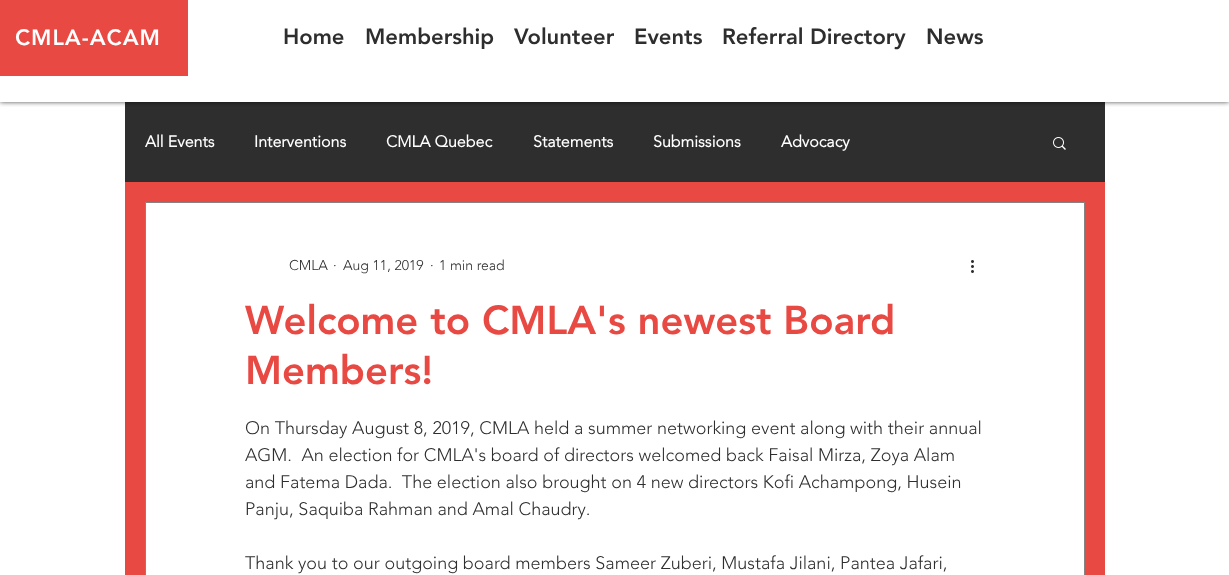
<svg xmlns="http://www.w3.org/2000/svg" width="1229" height="575" viewBox="0 0 1229 575">
  <defs>
    <clipPath id="clip1"><path d="M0 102h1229v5H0z"/></clipPath>
  </defs>
  <rect width="100%" height="100%" fill="#fff"/>
  <path d="M125 102h980v80H125z" fill="#2f2e2e"/>
  <g clip-path="url(#clip1)">
    <path d="M0 0h1229v102H0z" fill="#000000b3" filter="blur(2.5px)"/>
  </g>
  <path d="M0 0h188v76H0z" fill="#e84a43"/>
  <path d="M125 182h980v393H125z" fill="#e84a43"/>
  <image x="1053" y="137" width="13" height="13" href="img/1.png"/>
  <path d="M145.5 202.5h939v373H145.5z" fill="#fff" stroke="#858383"/>
  <image x="971" y="260" width="3" height="13" href="img/2.png"/>
  <text x="15" y="45" font-family="'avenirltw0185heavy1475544'" font-size="22" font-weight="900" letter-spacing="1" fill="#fff">CMLA-ACAM</text>
  <g font-family="'avenirltw0185heavy1475544'" font-size="22" font-weight="900" fill="#2f2e2e">
    <text x="283" y="44">Home</text>
    <text x="365" y="44">Membership</text>
    <text x="514" y="44">Volunteer</text>
    <text x="634" y="44">Events</text>
    <text x="722" y="44">Referral Directory</text>
    <text x="926" y="44">News</text>
  </g>
  <g font-family="'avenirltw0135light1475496'" font-size="16" font-weight="bold" fill="#fff">
    <text x="145" y="147">All Events</text>
    <text x="254" y="147">Interventions</text>
    <text x="386" y="147">CMLA Quebec</text>
    <text x="533" y="147">Statements</text>
    <text x="653" y="147">Submissions</text>
    <text x="781" y="147">Advocacy</text>
  </g>
  <g font-family="'avenirltw0135light1475496'" font-size="14" font-weight="300" fill="#2f2e2e">
    <text x="289" y="270">CMLA</text>
    <text x="333" y="270">·</text>
    <text x="343" y="270">Aug 11, 2019</text>
    <text x="430" y="270">·</text>
    <text x="439" y="270">1 min read</text>
  </g>
  <g font-family="'avenirltw0185heavy1475544'" font-size="40" font-weight="900" fill="#e84a43">
    <text x="245" y="334">Welcome to CMLA's newest Board</text>
    <text x="245" y="384">Members!</text>
  </g>
  <g font-family="'avenirltw0135light1475496'" font-size="18" font-weight="300" fill="#2f2e2e">
    <text x="245" y="434">On Thursday August 8, 2019, CMLA held a summer networking event along with their annual</text>
    <text x="245" y="461" xml:space="preserve">AGM.  An election for CMLA's board of directors welcomed back Faisal Mirza, Zoya Alam</text>
    <text x="245" y="488" xml:space="preserve">and Fatema Dada.  The election also brought on 4 new directors Kofi Achampong, Husein</text>
    <text x="245" y="515">Panju, Saquiba Rahman and Amal Chaudry.</text>
    <text x="245" y="569">Thank you to our outgoing board members Sameer Zuberi, Mustafa Jilani, Pantea Jafari,</text>
  </g>
</svg>
